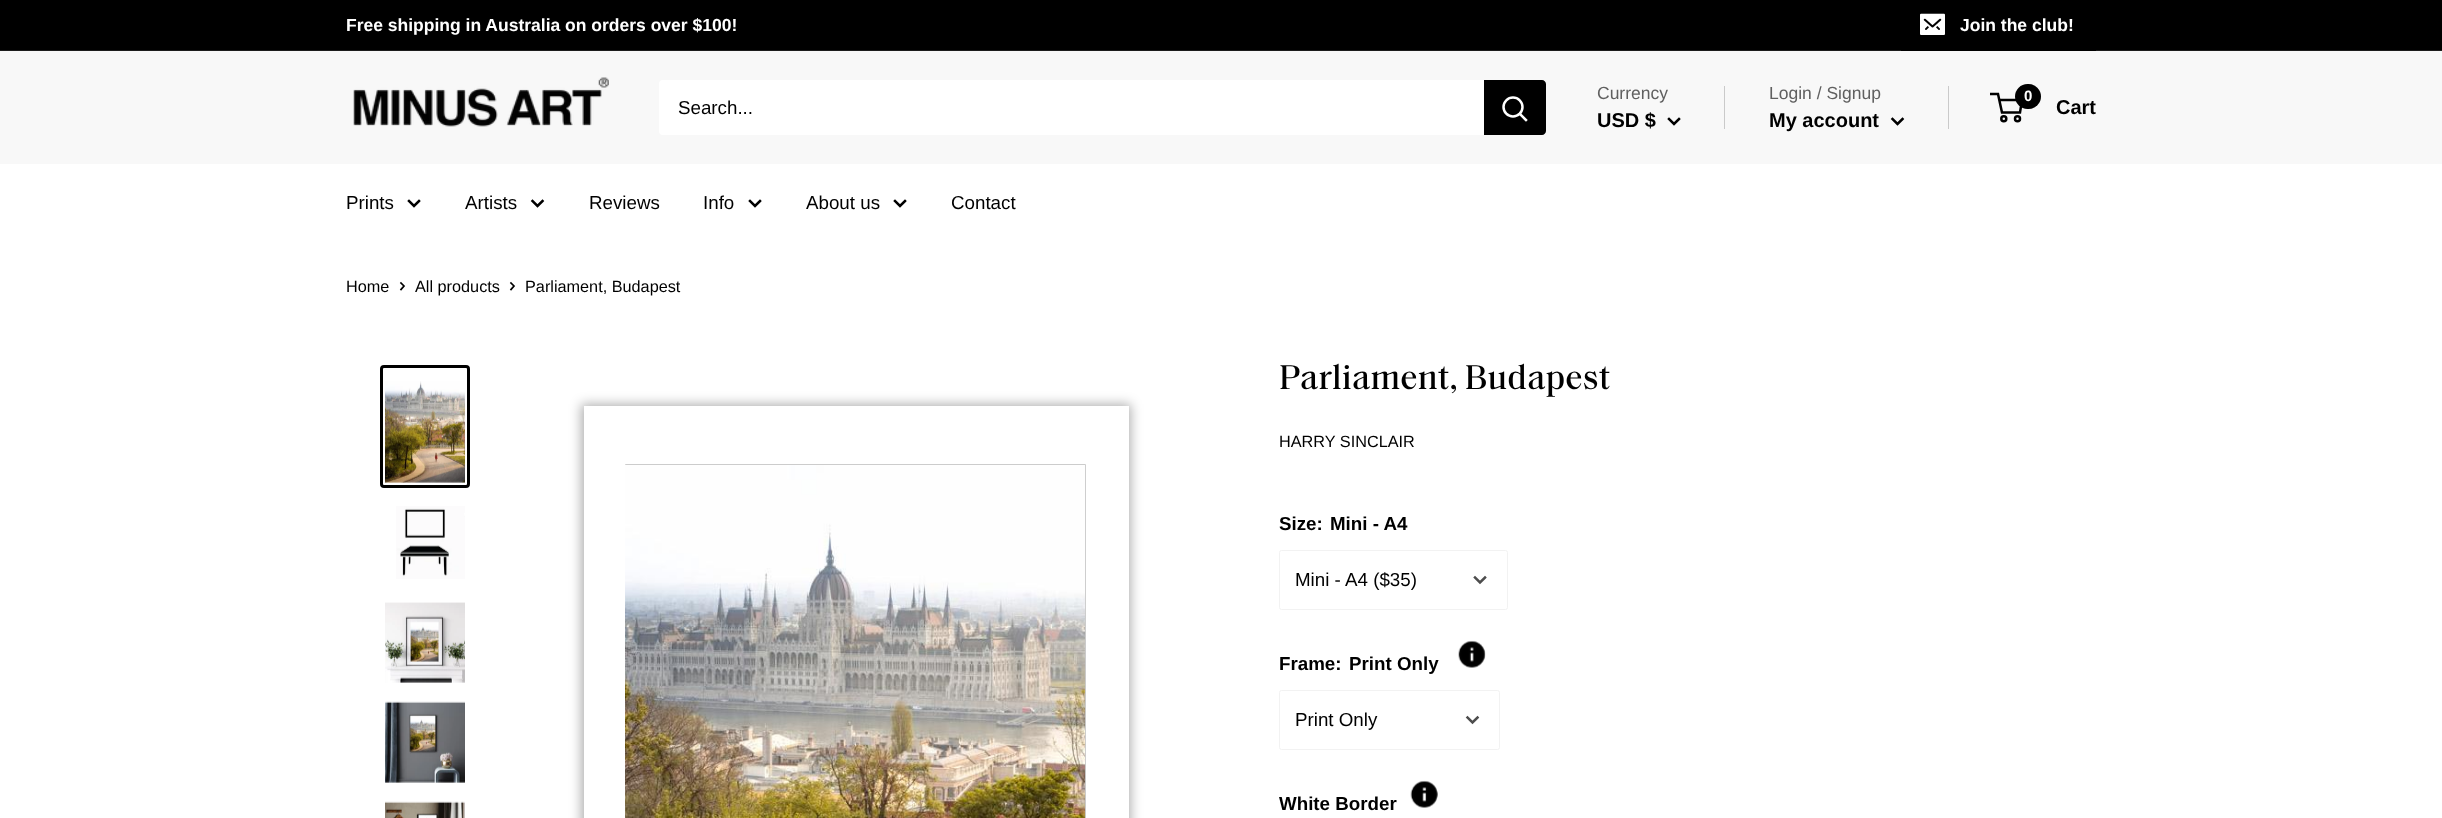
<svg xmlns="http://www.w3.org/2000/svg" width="2442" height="818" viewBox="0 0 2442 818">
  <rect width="100%" height="100%" fill="#fff"/>
  <path d="M0 0h2442v50H0z" fill="#000"/>
  <path d="M0 50h2442v1H0z" fill="#1d1d1d"/>
  <path d="M1901 1V51H2096V50H1901Z" fill="#000"/>
  <image x="1920" y="13" width="25" height="22" href="img/1.png"/>
  <path d="M0 51h2442v113H0z" fill="#f8f8f8"/>
  <image x="353" y="77" width="256" height="50" href="img/2.png"/>
  <rect x="659" y="80" width="887" height="55" rx="4" fill="#fff"/>
  <path d="M1484 80H1542C1544 80 1546 82 1546 84V131C1546 133 1544 135 1542 135H1484Z" fill="#000"/>
  <path d="M1526 120L1520 114" fill="none" stroke="#fff" stroke-width="2.5" stroke-linecap="square"/>
  <circle cx="1513" cy="107" r="9.5" fill="none" stroke="#fff" stroke-width="2.5"/>
  <path d="M1679 119L1674 124L1669 119" fill="none" stroke="#000" stroke-width="2.5" stroke-linecap="square"/>
  <path d="M1724 86h1v43H1724z" fill="#cacaca"/>
  <path d="M1948 86h1v43H1948z" fill="#cacaca"/>
  <path d="M1902.5 119L1897.5 124L1892.5 119" fill="none" stroke="#000" stroke-width="2.5" stroke-linecap="square"/>
  <circle cx="2003.8" cy="118.8" r="2.5" fill="none" stroke="#000" stroke-width="2.5"/>
  <circle cx="2017.5" cy="118.8" r="2.5" fill="none" stroke="#000" stroke-width="2.5"/>
  <path d="M1999 100H2022L2020 112.5H2002L1998 94H1990" fill="none" stroke="#000" stroke-width="2.5"/>
  <rect x="2015" y="84" width="26" height="25" rx="12.5" fill="#000"/>
  <path d="M419 201L414 206L409 201" fill="none" stroke="#000" stroke-width="2.5" stroke-linecap="square"/>
  <path d="M542.5 201L537.5 206L532.5 201" fill="none" stroke="#000" stroke-width="2.5" stroke-linecap="square"/>
  <path d="M760 201L755 206L750 201" fill="none" stroke="#000" stroke-width="2.5" stroke-linecap="square"/>
  <path d="M905 201L900 206L895 201" fill="none" stroke="#000" stroke-width="2.5" stroke-linecap="square"/>
  <path d="M401 283L404 286L401 289.5" fill="none" stroke="#000" stroke-width="1.7" stroke-linecap="square"/>
  <path d="M511 283L514 286L511 289.5" fill="none" stroke="#000" stroke-width="1.7" stroke-linecap="square"/>
  <rect x="381.5" y="366.5" width="87" height="120" rx="2.5" fill="none" stroke="#000" stroke-width="3"/>
  <image x="385" y="381" width="80" height="102" href="img/3.png"/>
  <image x="396" y="506" width="69" height="73" href="img/4.png"/>
  <image x="385" y="602" width="80" height="81" href="img/5.png"/>
  <image x="385" y="701" width="80" height="82" href="img/6.png"/>
  <image x="385" y="801" width="80" height="17" href="img/7.png"/>
  <path d="M581 404h550v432H581z" fill="#0000004f" filter="blur(6px)"/>
  <path d="M584 406h545v412H584z" fill="#fff"/>
  <path d="M625.5 464.5h460v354H625.5z" fill="none" stroke="#ccc"/>
  <image x="625" y="465" width="461" height="353" href="img/8.png"/>
  <rect x="1279.5" y="550.5" width="228" height="59" rx="2" fill="none" stroke="#f2f2f2"/>
  <path d="M1485 577.5L1480 582.5L1475 577.5" fill="none" stroke="#4d4d4d" stroke-width="2.5" stroke-linecap="square"/>
  <image x="1458" y="640" width="28" height="28" href="img/9.png"/>
  <rect x="1279.5" y="690.5" width="220" height="59" rx="2" fill="none" stroke="#f2f2f2"/>
  <path d="M1477.5 717.5L1472.5 722.5L1467.5 717.5" fill="none" stroke="#4d4d4d" stroke-width="2.5" stroke-linecap="square"/>
  <image x="1410" y="780" width="28" height="28" href="img/10.png"/>
  <g font-family="Liberation Sans" font-size="17.5" font-weight="bold" fill="#fff">
    <text x="346" y="31">Free shipping in Australia on orders over $100!</text>
    <text x="1960" y="31">Join the club!</text>
  </g>
  <text x="678" y="114" font-family="Liberation Sans" font-size="18.75" fill="#000">Search...</text>
  <text x="1597" y="99" font-family="Liberation Sans" font-size="17.5" fill="#606060">Currency</text>
  <text x="1597" y="127" font-family="Liberation Sans" font-size="20" font-weight="bold" fill="#000">USD $</text>
  <text x="1769" y="99" font-family="Liberation Sans" font-size="17.5" fill="#606060">Login / Signup</text>
  <text x="1769" y="127" font-family="Liberation Sans" font-size="20" font-weight="bold" fill="#000">My account</text>
  <text x="2024" y="101" font-family="Liberation Sans" font-size="15" font-weight="bold" fill="#fff">0</text>
  <text x="2056" y="114" font-family="Liberation Sans" font-size="20" font-weight="bold" fill="#000">Cart</text>
  <g font-family="Liberation Sans" font-size="18.75" fill="#000">
    <text x="346" y="209">Prints</text>
    <text x="465" y="209">Artists</text>
    <text x="589" y="209">Reviews</text>
    <text x="703" y="209">Info</text>
    <text x="806" y="209">About us</text>
    <text x="951" y="209">Contact</text>
  </g>
  <g font-family="Liberation Sans" font-size="16.25" fill="#000">
    <text x="346" y="292">Home</text>
    <text x="415" y="292">All products</text>
    <text x="525" y="292">Parliament, Budapest</text>
  </g>
  <text x="1279" y="389" font-family="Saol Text" font-size="35" font-weight="500" fill="#000">Parliament, Budapest</text>
  <text x="1279" y="447" font-family="Liberation Sans" font-size="16.25" fill="#000">HARRY SINCLAIR</text>
  <g font-family="Liberation Sans" font-size="18.75" font-weight="bold" fill="#000">
    <text x="1279" y="530">Size:</text>
    <text x="1330" y="530">Mini - A4</text>
  </g>
  <text x="1295" y="586" font-family="Liberation Sans" font-size="18.75" fill="#000">Mini - A4 ($35)</text>
  <g font-family="Liberation Sans" font-size="18.75" font-weight="bold" fill="#000">
    <text x="1279" y="670">Frame:</text>
    <text x="1349" y="670">Print Only</text>
  </g>
  <text x="1295" y="726" font-family="Liberation Sans" font-size="18.75" fill="#000">Print Only</text>
  <text x="1279" y="810" font-family="Liberation Sans" font-size="18.75" font-weight="bold" fill="#000">White Border</text>
</svg>
